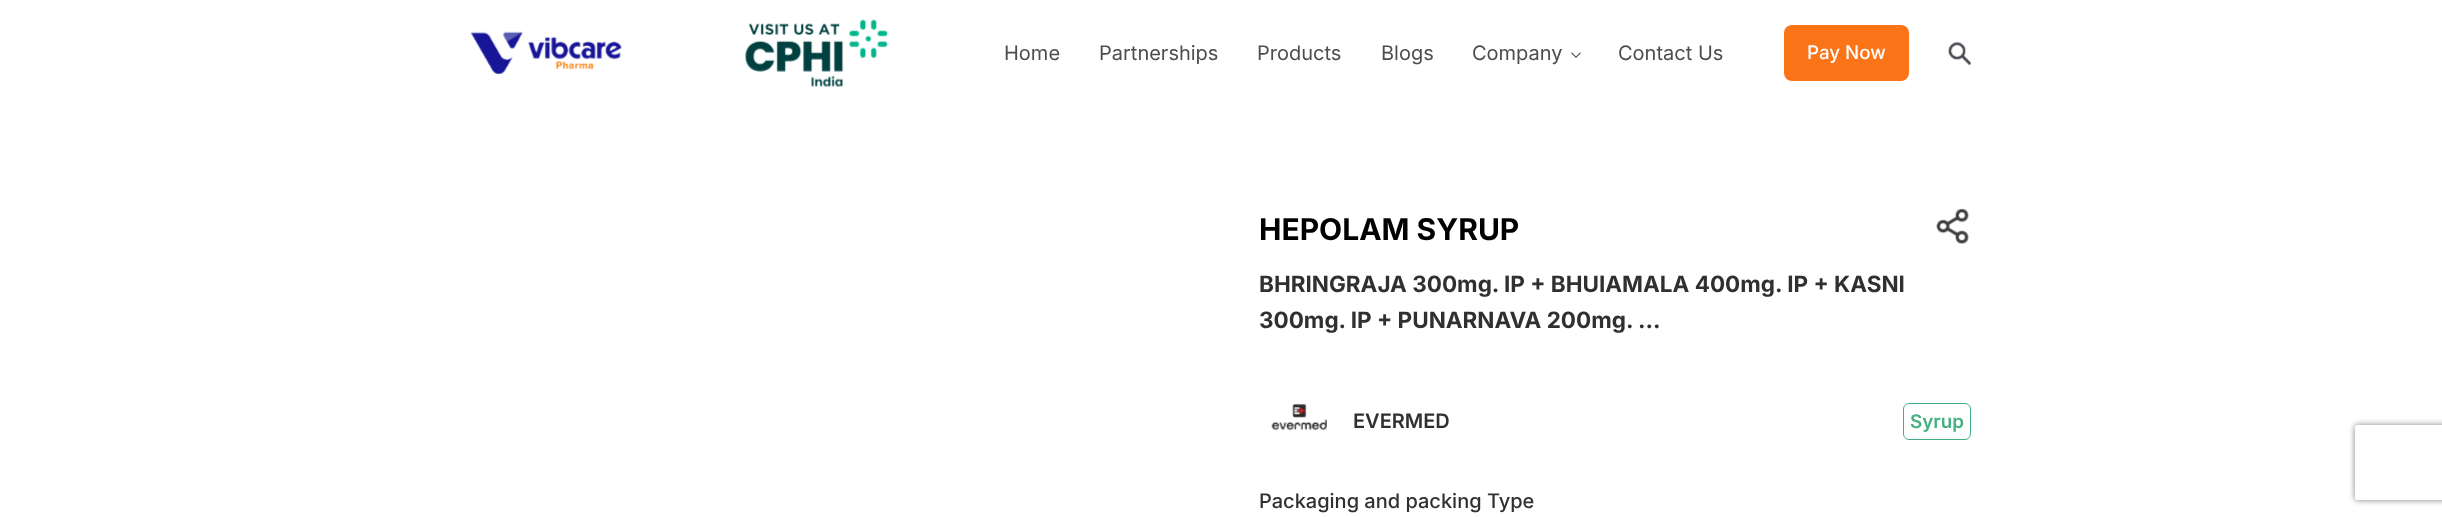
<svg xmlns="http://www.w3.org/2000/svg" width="2442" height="517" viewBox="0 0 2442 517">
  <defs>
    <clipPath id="clip1"><path d="M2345 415H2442V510H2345ZM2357.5 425H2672.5C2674 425 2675 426 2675 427.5V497.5C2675 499 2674 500 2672.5 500H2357.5C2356 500 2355 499 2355 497.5V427.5C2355 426 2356 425 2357.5 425Z" clip-rule="evenodd"/></clipPath>
  </defs>
  <rect width="100%" height="100%" fill="#fff"/>
  <image x="471" y="31" width="151" height="43" href="img/1.png"/>
  <image x="745" y="19" width="143" height="68" href="img/2.png"/>
  <path d="M1581 53L1576 58V56.5L1580 52.5ZM1576 58L1571 53L1572 52.5L1576 56.5Z" fill="#4d4d4d"/>
  <rect x="1784" y="25" width="125" height="56" rx="8" fill="#fb7418"/>
  <image x="1948" y="41" width="23" height="25" href="img/3.png"/>
  <image x="1936" y="208" width="33" height="36" href="img/4.png"/>
  <image x="1271" y="404" width="56" height="27" href="img/5.png"/>
  <rect x="1903.5" y="403.5" width="67" height="36" rx="5.5" fill="none" stroke="#44b181"/>
  <g clip-path="url(#clip1)">
    <rect x="2355" y="425" width="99" height="75" rx="2.5" fill="#808080" filter="blur(3px)"/>
  </g>
  <g font-family="Inter" font-size="20" fill="#4d4d4d">
    <text x="1004" y="60">Home</text>
    <text x="1099" y="60">Partnerships</text>
    <text x="1257" y="60">Products</text>
    <text x="1381" y="60">Blogs</text>
    <text x="1472" y="60">Company</text>
    <text x="1618" y="60">Contact Us</text>
  </g>
  <text x="1807" y="59" font-family="Inter" font-size="18.75" font-weight="500" fill="#fff">Pay Now</text>
  <text x="1259" y="240" font-family="Inter" font-size="30" font-weight="bold" fill="#000">HEPOLAM SYRUP</text>
  <g font-family="Inter" font-size="22.5" font-weight="bold" fill="#303030">
    <text x="1259" y="292">BHRINGRAJA 300mg. IP + BHUIAMALA 400mg. IP + KASNI</text>
    <text x="1259" y="328">300mg. IP + PUNARNAVA 200mg. ...</text>
  </g>
  <text x="1353" y="428" font-family="Inter" font-size="20" font-weight="600" fill="#303030">EVERMED</text>
  <text x="1910" y="428" font-family="Inter" font-size="18.75" font-weight="600" fill="#44b181">Syrup</text>
  <text x="1259" y="508" font-family="Inter" font-size="20" font-weight="500" fill="#303030">Packaging and packing Type</text>
</svg>
